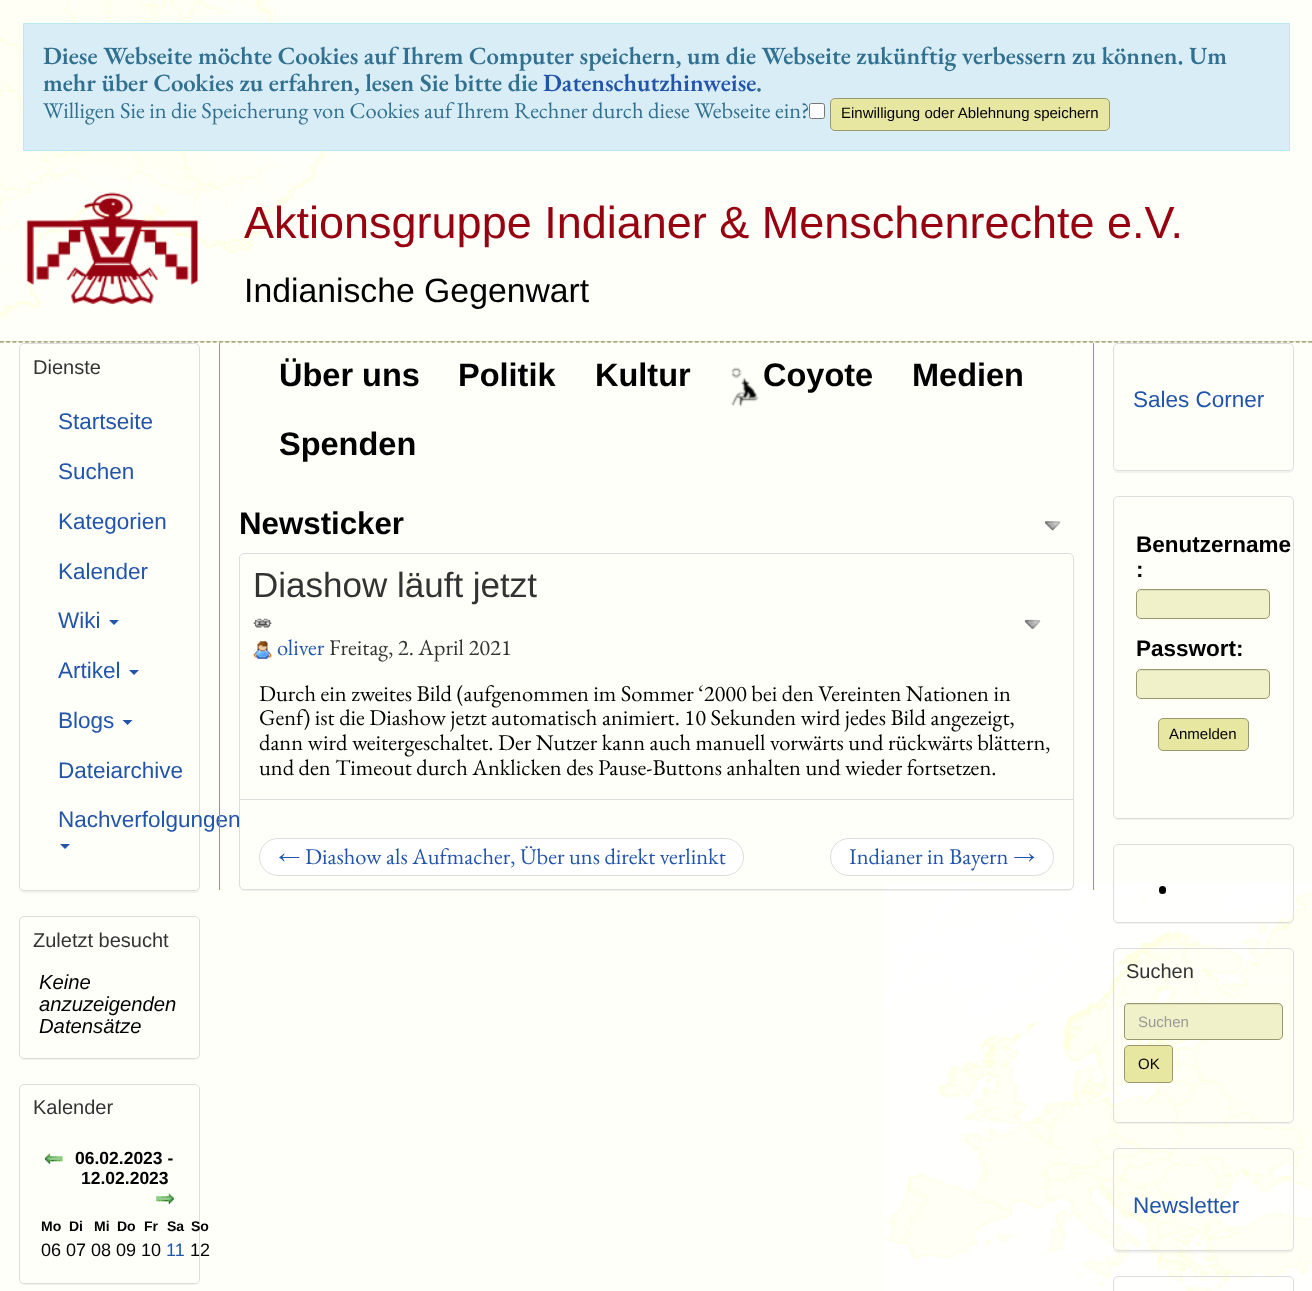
<svg xmlns="http://www.w3.org/2000/svg" width="1312" height="1291" viewBox="0 0 1312 1291">
  <defs>
    <clipPath id="clip1"><path d="M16 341H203V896H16ZM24 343H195C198 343 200 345 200 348V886C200 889 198 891 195 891H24C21 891 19 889 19 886V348C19 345 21 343 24 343Z" clip-rule="evenodd"/></clipPath>
    <clipPath id="clip2"><path d="M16 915H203V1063H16ZM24 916H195C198 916 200 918 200 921V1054C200 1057 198 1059 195 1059H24C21 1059 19 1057 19 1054V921C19 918 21 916 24 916Z" clip-rule="evenodd"/></clipPath>
    <clipPath id="clip3"><path d="M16 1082H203V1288H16ZM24 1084H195C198 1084 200 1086 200 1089V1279C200 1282 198 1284 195 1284H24C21 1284 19 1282 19 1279V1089C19 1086 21 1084 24 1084Z" clip-rule="evenodd"/></clipPath>
    <clipPath id="clip4"><path d="M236 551H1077V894H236ZM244 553H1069C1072 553 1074 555 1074 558V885C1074 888 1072 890 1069 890H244C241 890 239 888 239 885V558C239 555 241 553 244 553Z" clip-rule="evenodd"/></clipPath>
    <clipPath id="clip5"><path d="M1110 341H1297V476H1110ZM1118 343H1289C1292 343 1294 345 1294 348V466C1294 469 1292 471 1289 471H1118C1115 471 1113 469 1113 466V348C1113 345 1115 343 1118 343Z" clip-rule="evenodd"/></clipPath>
    <clipPath id="clip6"><path d="M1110 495H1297V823H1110ZM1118 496H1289C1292 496 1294 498 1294 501V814C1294 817 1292 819 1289 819H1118C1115 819 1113 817 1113 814V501C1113 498 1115 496 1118 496Z" clip-rule="evenodd"/></clipPath>
    <clipPath id="clip7"><path d="M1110 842H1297V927H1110ZM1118 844H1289C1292 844 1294 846 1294 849V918C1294 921 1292 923 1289 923H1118C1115 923 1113 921 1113 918V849C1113 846 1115 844 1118 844Z" clip-rule="evenodd"/></clipPath>
    <clipPath id="clip8"><path d="M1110 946H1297V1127H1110ZM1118 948H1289C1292 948 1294 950 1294 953V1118C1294 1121 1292 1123 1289 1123H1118C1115 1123 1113 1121 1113 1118V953C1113 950 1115 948 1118 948Z" clip-rule="evenodd"/></clipPath>
    <clipPath id="clip9"><path d="M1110 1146H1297V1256H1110ZM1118 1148H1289C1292 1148 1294 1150 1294 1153V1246C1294 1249 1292 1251 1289 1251H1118C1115 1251 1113 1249 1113 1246V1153C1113 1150 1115 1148 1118 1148Z" clip-rule="evenodd"/></clipPath>
  </defs>
  <rect width="100%" height="100%" fill="#fffffa"/>
  <image x="884" y="882" width="428" height="409" href="img/1.png"/>
  <image x="0" y="0" width="327" height="320" href="img/2.png"/>
  <path d="M23.5 23.5h1266v127H23.5z" fill="#d9edf7" stroke="#bce8f1"/>
  <rect x="809.5" y="103.5" width="15" height="15" rx="2" fill="#fff" stroke="#767676"/>
  <rect x="830.5" y="98.5" width="279" height="32" rx="4.5" fill="#e7e7a1" stroke="#999970"/>
  <image x="26" y="192" width="172" height="113" href="img/3.png"/>
  <path d="M0 341h1312v1H0z" fill="#e0e1b8"/>
  <path d="M0 342H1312.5" fill="none" stroke="#777750" stroke-width="1.2" stroke-dasharray="3.75 2.51"/>
  <g clip-path="url(#clip1)">
    <rect x="19" y="344" width="181" height="549" rx="5" fill="#0000000d" filter="blur(0.5px)"/>
  </g>
  <rect x="19.5" y="343.5" width="180" height="547" rx="4.5" fill="none" stroke="#ddd"/>
  <path d="M109 620H119L114 625Z" fill="#25a"/>
  <path d="M129 670H139L134 675Z" fill="#25a"/>
  <path d="M122.5 720H132.5L127.5 725Z" fill="#25a"/>
  <path d="M60 844H70L65 849Z" fill="#25a"/>
  <g clip-path="url(#clip2)">
    <rect x="19" y="918" width="181" height="142" rx="5" fill="#0000000d" filter="blur(0.5px)"/>
  </g>
  <rect x="19.5" y="916.5" width="180" height="142" rx="4.5" fill="none" stroke="#ddd"/>
  <g clip-path="url(#clip3)">
    <rect x="19" y="1085" width="181" height="200" rx="5" fill="#0000000d" filter="blur(0.5px)"/>
  </g>
  <rect x="19.5" y="1084.5" width="180" height="199" rx="4.5" fill="none" stroke="#ddd"/>
  <image x="44" y="1153" width="19" height="11" href="img/4.png"/>
  <image x="156" y="1193" width="18" height="11" href="img/5.png"/>
  <path d="M1093 343h1v547H1093z" fill="#999970"/>
  <path d="M239 343h835v5H239z" fill="#f0f0e9"/>
  <rect x="239" y="343" width="835" height="140" rx="5" fill="#fffffa"/>
  <image x="731" y="367" width="28" height="40" href="img/6.png"/>
  <image x="1044" y="521" width="17" height="10" href="img/7.png"/>
  <g clip-path="url(#clip4)">
    <rect x="239" y="554" width="835" height="337" rx="5" fill="#0000000d" filter="blur(0.5px)"/>
  </g>
  <rect x="239.5" y="553.5" width="834" height="336" rx="4.5" fill="none" stroke="#ddd"/>
  <image x="253" y="618" width="19" height="10" href="img/8.png"/>
  <image x="1024" y="619" width="17" height="10" href="img/9.png"/>
  <image x="253" y="641" width="19" height="18" href="img/10.png"/>
  <path d="M240 799h833v1H240z" fill="#ddd"/>
  <rect x="259.5" y="838.5" width="484" height="37" rx="18.5" fill="#fff" stroke="#ddd"/>
  <rect x="830.5" y="838.5" width="223" height="37" rx="18.5" fill="#fff" stroke="#ddd"/>
  <g clip-path="url(#clip5)">
    <rect x="1113" y="344" width="181" height="129" rx="5" fill="#0000000d" filter="blur(0.5px)"/>
  </g>
  <rect x="1113.5" y="343.5" width="180" height="127" rx="4.5" fill="none" stroke="#ddd"/>
  <g clip-path="url(#clip6)">
    <rect x="1113" y="498" width="181" height="322" rx="5" fill="#0000000d" filter="blur(0.5px)"/>
  </g>
  <rect x="1113.5" y="496.5" width="180" height="322" rx="4.5" fill="none" stroke="#ddd"/>
  <rect x="1136" y="589" width="134" height="30" rx="5" fill="#f1f1c9"/>
  <path d="M1141 591H1265C1267 591 1269 593 1269 595V594C1269 592 1267 590 1265 590H1142C1140 590 1138 592 1138 594V595C1138 593 1139 591 1141 591Z" fill="#dfdfba"/>
  <rect x="1136.5" y="589.5" width="133" height="29" rx="4.5" fill="none" stroke="#999970"/>
  <rect x="1136" y="669" width="134" height="30" rx="5" fill="#f1f1c9"/>
  <path d="M1141 671H1265C1267 671 1269 673 1269 675V674C1269 672 1267 670 1265 670H1142C1140 670 1138 672 1138 674V675C1138 673 1139 671 1141 671Z" fill="#dfdfba"/>
  <rect x="1136.5" y="669.5" width="133" height="29" rx="4.5" fill="none" stroke="#999970"/>
  <rect x="1158.5" y="718.5" width="90" height="32" rx="4.5" fill="#e7e7a1" stroke="#999970"/>
  <g clip-path="url(#clip7)">
    <rect x="1113" y="845" width="181" height="79" rx="5" fill="#0000000d" filter="blur(0.5px)"/>
  </g>
  <rect x="1113.5" y="844.5" width="180" height="78" rx="4.5" fill="none" stroke="#ddd"/>
  <rect x="1159" y="886" width="7" height="8" rx="3.5" fill="#000"/>
  <g clip-path="url(#clip8)">
    <rect x="1113" y="949" width="181" height="175" rx="5" fill="#0000000d" filter="blur(0.5px)"/>
  </g>
  <rect x="1113.5" y="948.5" width="180" height="174" rx="4.5" fill="none" stroke="#ddd"/>
  <path d="M1114 983h179v1H1114z" fill="#fffffa"/>
  <path d="M1128 1003H1278C1281 1003 1283 1005 1283 1008V1035C1283 1038 1281 1040 1278 1040H1128C1126 1040 1124 1038 1124 1036V1007C1124 1005 1126 1003 1128 1003Z" fill="#f1f1c9"/>
  <path d="M1128 1005H1278C1280 1005 1281 1007 1281 1009C1281 1006 1280 1004 1277 1004H1128C1125 1004 1125 1006 1125 1008C1125 1006 1126 1005 1128 1005Z" fill="#dfdfba"/>
  <path d="M1128 1003.5H1278C1280.5 1003.5 1282.5 1005.5 1282.5 1008V1035C1282.5 1037.5 1280.5 1039.5 1278 1039.5H1128C1126 1039.5 1124.5 1038 1124.5 1036V1007C1124.5 1005 1126 1003.5 1128 1003.5Z" fill="none" stroke="#999970"/>
  <path d="M1129 1045.5H1169C1171 1045.5 1172.5 1047 1172.5 1049V1079C1172.5 1081 1171 1082.5 1169 1082.5H1129C1126.5 1082.5 1124.5 1080.5 1124.5 1078V1050C1124.5 1047.5 1126.5 1045.5 1129 1045.5Z" fill="#e7e7a1" stroke="#999970"/>
  <g clip-path="url(#clip9)">
    <rect x="1113" y="1149" width="181" height="104" rx="5" fill="#0000000d" filter="blur(0.5px)"/>
  </g>
  <rect x="1113.5" y="1148.5" width="180" height="102" rx="4.5" fill="none" stroke="#ddd"/>
  <path d="M1114 1161h179v1H1114z" fill="#fffffa"/>
  <rect x="1113.5" y="1276.5" width="180" height="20" rx="4.5" fill="none" stroke="#ddd"/>
  <g font-family="EB Garamond" font-size="24.75" font-weight="600" fill="#31708f">
    <text x="43" y="64">Diese Webseite möchte Cookies auf Ihrem Computer speichern, um die Webseite zukünftig verbessern zu können. Um</text>
    <text x="43" y="91">mehr über Cookies zu erfahren, lesen Sie bitte die</text>
  </g>
  <text x="543" y="91" font-family="EB Garamond" font-size="24.75" font-weight="600" fill="#25a">Datenschutzhinweise</text>
  <text x="756" y="91" font-family="EB Garamond" font-size="24.75" font-weight="600" fill="#31708f">.</text>
  <text x="43" y="118" font-family="EB Garamond" font-size="22.5" fill="#31708f">Willigen Sie in die Speicherung von Cookies auf Ihrem Rechner durch diese Webseite ein?</text>
  <text x="841" y="118" font-family="Liberation Sans" font-size="15" fill="#000">Einwilligung oder Ablehnung speichern</text>
  <text x="244" y="238" font-family="Liberation Sans" font-size="45" fill="#970210">Aktionsgruppe Indianer &amp; Menschenrechte e.V.</text>
  <text x="244" y="302" font-family="Liberation Sans" font-size="33.75" fill="#000">Indianische Gegenwart</text>
  <text x="33" y="374" font-family="Liberation Sans" font-size="20" fill="#333">Dienste</text>
  <g font-family="Liberation Sans" font-size="22.5" fill="#25a">
    <text x="58" y="429">Startseite</text>
    <text x="58" y="479">Suchen</text>
    <text x="58" y="529">Kategorien</text>
    <text x="58" y="579">Kalender</text>
    <text x="58" y="628">Wiki</text>
    <text x="58" y="678">Artikel</text>
    <text x="58" y="728">Blogs</text>
    <text x="58" y="778">Dateiarchive</text>
    <text x="58" y="827">Nachverfolgungen</text>
  </g>
  <text x="33" y="947" font-family="Liberation Sans" font-size="20" fill="#333">Zuletzt besucht</text>
  <g font-family="Liberation Sans" font-size="20.25" font-style="italic" fill="#000">
    <text x="39" y="989">Keine</text>
    <text x="39" y="1011">anzuzeigenden</text>
    <text x="39" y="1033">Datensätze</text>
  </g>
  <text x="33" y="1114" font-family="Liberation Sans" font-size="20" fill="#333">Kalender</text>
  <g font-family="Liberation Sans" font-size="17.5" font-weight="bold" fill="#000">
    <text x="75" y="1164">06.02.2023 -</text>
    <text x="81" y="1184">12.02.2023</text>
  </g>
  <g font-family="Liberation Sans" font-size="14" font-weight="bold" fill="#000">
    <text x="41" y="1231">Mo</text>
    <text x="69" y="1231">Di</text>
    <text x="94" y="1231">Mi</text>
    <text x="117" y="1231">Do</text>
    <text x="144" y="1231">Fr</text>
    <text x="167" y="1231">Sa</text>
    <text x="191" y="1231">So</text>
  </g>
  <text x="41" y="1256" font-family="Liberation Sans" font-size="18" fill="#000">06 07 08 09 10</text>
  <text x="166" y="1256" font-family="Liberation Sans" font-size="18" fill="#25a">11</text>
  <text x="190" y="1256" font-family="Liberation Sans" font-size="18" fill="#000">12</text>
  <path d="M219 343h1v547H219z" fill="#999970"/>
  <g font-family="Liberation Sans" font-size="32.5" font-weight="bold" fill="#000">
    <text x="279" y="386">Über uns</text>
    <text x="458" y="386">Politik</text>
    <text x="595" y="386">Kultur</text>
    <text x="763" y="386">Coyote</text>
    <text x="912" y="386">Medien</text>
    <text x="279" y="455">Spenden</text>
  </g>
  <text x="239" y="534" font-family="Liberation Sans" font-size="31.25" font-weight="bold" fill="#000">Newsticker</text>
  <text x="253" y="597" font-family="Liberation Sans" font-size="35" fill="#333">Diashow läuft jetzt</text>
  <text x="277" y="655" font-family="EB Garamond" font-size="22.5" fill="#25a">oliver</text>
  <text x="329" y="655" font-family="EB Garamond" font-size="22.5" fill="#333">Freitag, 2. April 2021</text>
  <g font-family="EB Garamond" font-size="22.5" fill="#000">
    <text x="259" y="701">Durch ein zweites Bild (aufgenommen im Sommer ‘2000 bei den Vereinten Nationen in</text>
    <text x="259" y="725">Genf) ist die Diashow jetzt automatisch animiert. 10 Sekunden wird jedes Bild angezeigt,</text>
    <text x="259" y="750">dann wird weitergeschaltet. Der Nutzer kann auch manuell vorwärts und rückwärts blättern,</text>
    <text x="259" y="775">und den Timeout durch Anklicken des Pause-Buttons anhalten und wieder fortsetzen.</text>
  </g>
  <g font-family="EB Garamond" font-size="22.5" fill="#25a">
    <text x="278" y="864">← Diashow als Aufmacher, Über uns direkt verlinkt</text>
    <text x="849" y="864">Indianer in Bayern →</text>
  </g>
  <text x="1133" y="407" font-family="Liberation Sans" font-size="22.5" fill="#25a">Sales Corner</text>
  <g font-family="Liberation Sans" font-size="22.5" font-weight="bold" fill="#000">
    <text x="1136" y="552">Benutzername</text>
    <text x="1136" y="577">:</text>
    <text x="1136" y="656">Passwort:</text>
  </g>
  <text x="1169" y="739" font-family="Liberation Sans" font-size="15" fill="#000">Anmelden</text>
  <text x="1126" y="978" font-family="Liberation Sans" font-size="20" fill="#333">Suchen</text>
  <text x="1138" y="1027" font-family="Liberation Sans" font-size="15" fill="#999">Suchen</text>
  <text x="1138" y="1069" font-family="Liberation Sans" font-size="15" fill="#000">OK</text>
  <text x="1133" y="1213" font-family="Liberation Sans" font-size="22.5" fill="#25a">Newsletter</text>
</svg>
